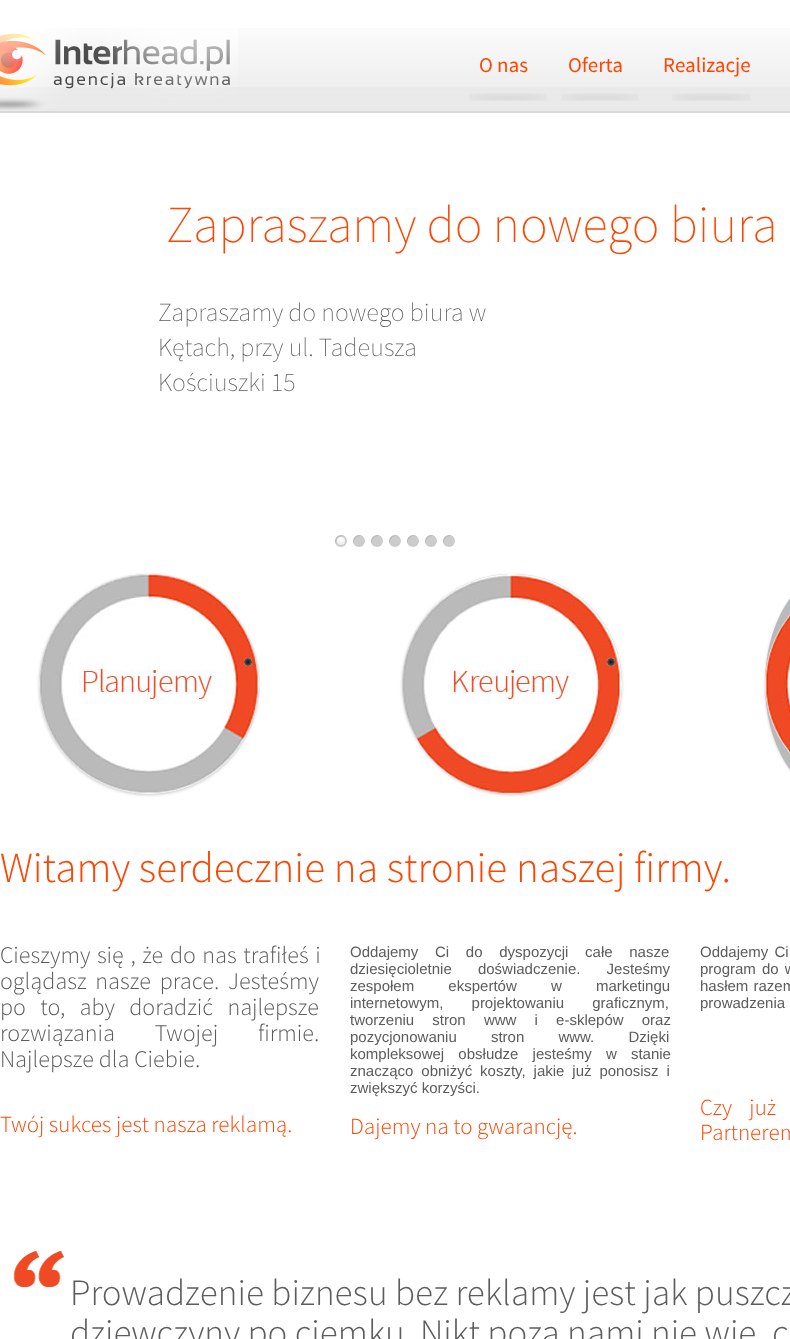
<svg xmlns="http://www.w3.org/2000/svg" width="790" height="1339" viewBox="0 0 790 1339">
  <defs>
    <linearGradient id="g1" gradientUnits="userSpaceOnUse" x1="341" y1="537" x2="341" y2="545"><stop offset="0" stop-color="#fff"/><stop offset="0.47" stop-color="#f6f6f6"/><stop offset="1" stop-color="#ededed"/></linearGradient>
    <radialGradient id="g2" gradientUnits="userSpaceOnUse" cx="248" cy="662" r="5.7"><stop offset="0" stop-color="#0e0e0e"/><stop offset="1" stop-color="#7d7e7d"/></radialGradient>
    <radialGradient id="g3" gradientUnits="userSpaceOnUse" cx="611" cy="662" r="5.7"><stop offset="0" stop-color="#0e0e0e"/><stop offset="1" stop-color="#7d7e7d"/></radialGradient>
  </defs>
  <rect width="100%" height="100%" fill="#fff"/>
  <image x="0" y="28" width="790" height="85" href="img/1.png"/>
  <image x="0" y="28" width="238" height="82" href="img/2.png"/>
  <image x="469" y="93" width="78" height="8" href="img/3.png"/>
  <image x="561" y="93" width="78" height="8" href="img/3.png"/>
  <image x="672" y="93" width="79" height="8" href="img/4.png"/>
  <circle cx="341" cy="541" r="6" fill="#ccc"/>
  <path d="M342 536C343.5 536 344.5 536.5 345.5 537C340 531 331 540 337 545.5C334.5 542 336.5 536 342 536Z" fill="#0000001a"/>
  <circle cx="341" cy="541" r="4" fill="url(#g1)"/>
  <circle cx="359" cy="541" r="6" fill="#ccc"/>
  <path d="M360 536C361.5 536 362.5 536.5 363.5 537C358 531 349 540 355 545.5C352.5 542 354.5 536 360 536Z" fill="#0000001a"/>
  <circle cx="377" cy="541" r="6" fill="#ccc"/>
  <path d="M378 536C379.5 536 380.5 536.5 381.5 537C376 531 367 540 373 545.5C370.5 542 372.5 536 378 536Z" fill="#0000001a"/>
  <circle cx="395" cy="541" r="6" fill="#ccc"/>
  <path d="M396 536C397.5 536 398.5 536.5 399.5 537C394 531 385 540 391 545.5C388.5 542 390.5 536 396 536Z" fill="#0000001a"/>
  <circle cx="413" cy="541" r="6" fill="#ccc"/>
  <path d="M414 536C415.5 536 416.5 536.5 417.5 537C412 531 403 540 409 545.5C406.5 542 408.5 536 414 536Z" fill="#0000001a"/>
  <circle cx="431" cy="541" r="6" fill="#ccc"/>
  <path d="M432 536C433.5 536 434.5 536.5 435.5 537C430 531 421 540 427 545.5C424.5 542 426.5 536 432 536Z" fill="#0000001a"/>
  <circle cx="449" cy="541" r="6" fill="#ccc"/>
  <path d="M450 536C451.5 536 452.5 536.5 453.5 537C448 531 439 540 445 545.5C442.5 542 444.5 536 450 536Z" fill="#0000001a"/>
  <rect x="39" y="575" width="220" height="220" rx="110" fill="#00000033" filter="blur(1.5px)"/>
  <circle cx="149" cy="684" r="110" fill="#b8babb"/>
  <image x="39" y="574" width="220" height="220" href="img/5.png"/>
  <rect x="244" y="658" width="8" height="8" rx="4" fill="#ffffffe6" filter="blur(0.5px)"/>
  <circle cx="248" cy="662" r="4" fill="url(#g2)"/>
  <rect x="402" y="575" width="220" height="220" rx="110" fill="#00000033" filter="blur(1.5px)"/>
  <circle cx="512" cy="684" r="110" fill="#b8babb"/>
  <image x="402" y="574" width="220" height="220" href="img/6.png"/>
  <rect x="607" y="658" width="8" height="8" rx="4" fill="#ffffffe6" filter="blur(0.5px)"/>
  <circle cx="611" cy="662" r="4" fill="url(#g3)"/>
  <rect x="765" y="575" width="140" height="220" rx="110" fill="#00000033" filter="blur(1.5px)"/>
  <rect x="765" y="574" width="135" height="220" rx="110" fill="#b8babb"/>
  <image x="765" y="614" width="25" height="140" href="img/7.png"/>
  <image x="13" y="1250" width="51" height="37" href="img/8.png"/>
  <g font-family="Source Sans Pro" font-size="21" fill="#ff4500">
    <text x="479" y="72">O nas</text>
    <text x="568" y="72">Oferta</text>
    <text x="663" y="72">Realizacje</text>
  </g>
  <text x="166" y="242" font-family="Source Sans Pro" font-size="52" font-weight="200" fill="#ff4500">Zapraszamy do nowego biura</text>
  <g font-family="Source Sans Pro" font-size="26" font-weight="200" fill="#5c5c5c">
    <text x="158" y="321">Zapraszamy do nowego biura w</text>
    <text x="158" y="356">Kętach, przy ul. Tadeusza</text>
    <text x="158" y="391">Kościuszki 15</text>
  </g>
  <text x="0" y="882" font-family="Source Sans Pro" font-size="43" font-weight="300" fill="#ff4500">Witamy serdecznie na stronie naszej firmy.</text>
  <g font-family="Source Sans Pro" font-size="24" font-weight="300" fill="#5c5c5c">
    <text x="0" y="963" word-spacing="1.75">Cieszymy się , że do nas trafiłeś i</text>
    <text x="0" y="989" word-spacing="4">oglądasz nasze prace. Jesteśmy</text>
    <text x="0" y="1015" word-spacing="9.5">po to, aby doradzić najlepsze</text>
    <text x="0" y="1041" word-spacing="35">rozwiązania Twojej firmie.</text>
    <text x="0" y="1067">Najlepsze dla Ciebie.</text>
  </g>
  <text x="0" y="1132" font-family="Source Sans Pro" font-size="23" font-weight="300" fill="#ff4500">Twój sukces jest nasza reklamą.</text>
  <g font-family="Liberation Sans" font-size="15" fill="#5c5c5c">
    <text x="350" y="957" word-spacing="12.5">Oddajemy Ci do dyspozycji całe nasze</text>
    <text x="350" y="974" word-spacing="22">dziesięcioletnie doświadczenie. Jesteśmy</text>
    <text x="350" y="991" word-spacing="30">zespołem ekspertów w marketingu</text>
    <text x="350" y="1008" word-spacing="24">internetowym, projektowaniu graficznym,</text>
    <text x="350" y="1025" word-spacing="14">tworzeniu stron www i e-sklepów oraz</text>
    <text x="350" y="1042" word-spacing="30">pozycjonowaniu stron www. Dzięki</text>
    <text x="350" y="1059" word-spacing="10">kompleksowej obsłudze jesteśmy w stanie</text>
    <text x="350" y="1076" word-spacing="3.75">znacząco obniżyć koszty, jakie już ponosisz i</text>
    <text x="350" y="1093">zwiększyć korzyści.</text>
  </g>
  <text x="350" y="1134" font-family="Source Sans Pro" font-size="23" font-weight="300" fill="#ff4500">Dajemy na to gwarancję.</text>
  <g font-family="Liberation Sans" font-size="15" fill="#5c5c5c">
    <text x="700" y="957" word-spacing="2">Oddajemy Ci</text>
    <text x="700" y="974" word-spacing="2">program do w</text>
    <text x="700" y="991" word-spacing="1">hasłem razem</text>
    <text x="700" y="1008">prowadzenia</text>
  </g>
  <g font-family="Source Sans Pro" font-size="23" font-weight="300" fill="#ff4500">
    <text x="700" y="1115" word-spacing="12.5">Czy już</text>
    <text x="700" y="1140">Partnerem</text>
  </g>
  <g font-family="Source Sans Pro" font-size="37" font-weight="300" fill="#5c5c5c">
    <text x="70" y="1305">Prowadzenie biznesu bez reklamy jest jak puszcz</text>
    <text x="70" y="1345">dziewczyny po ciemku. Nikt poza nami nie wie, c</text>
  </g>
</svg>
